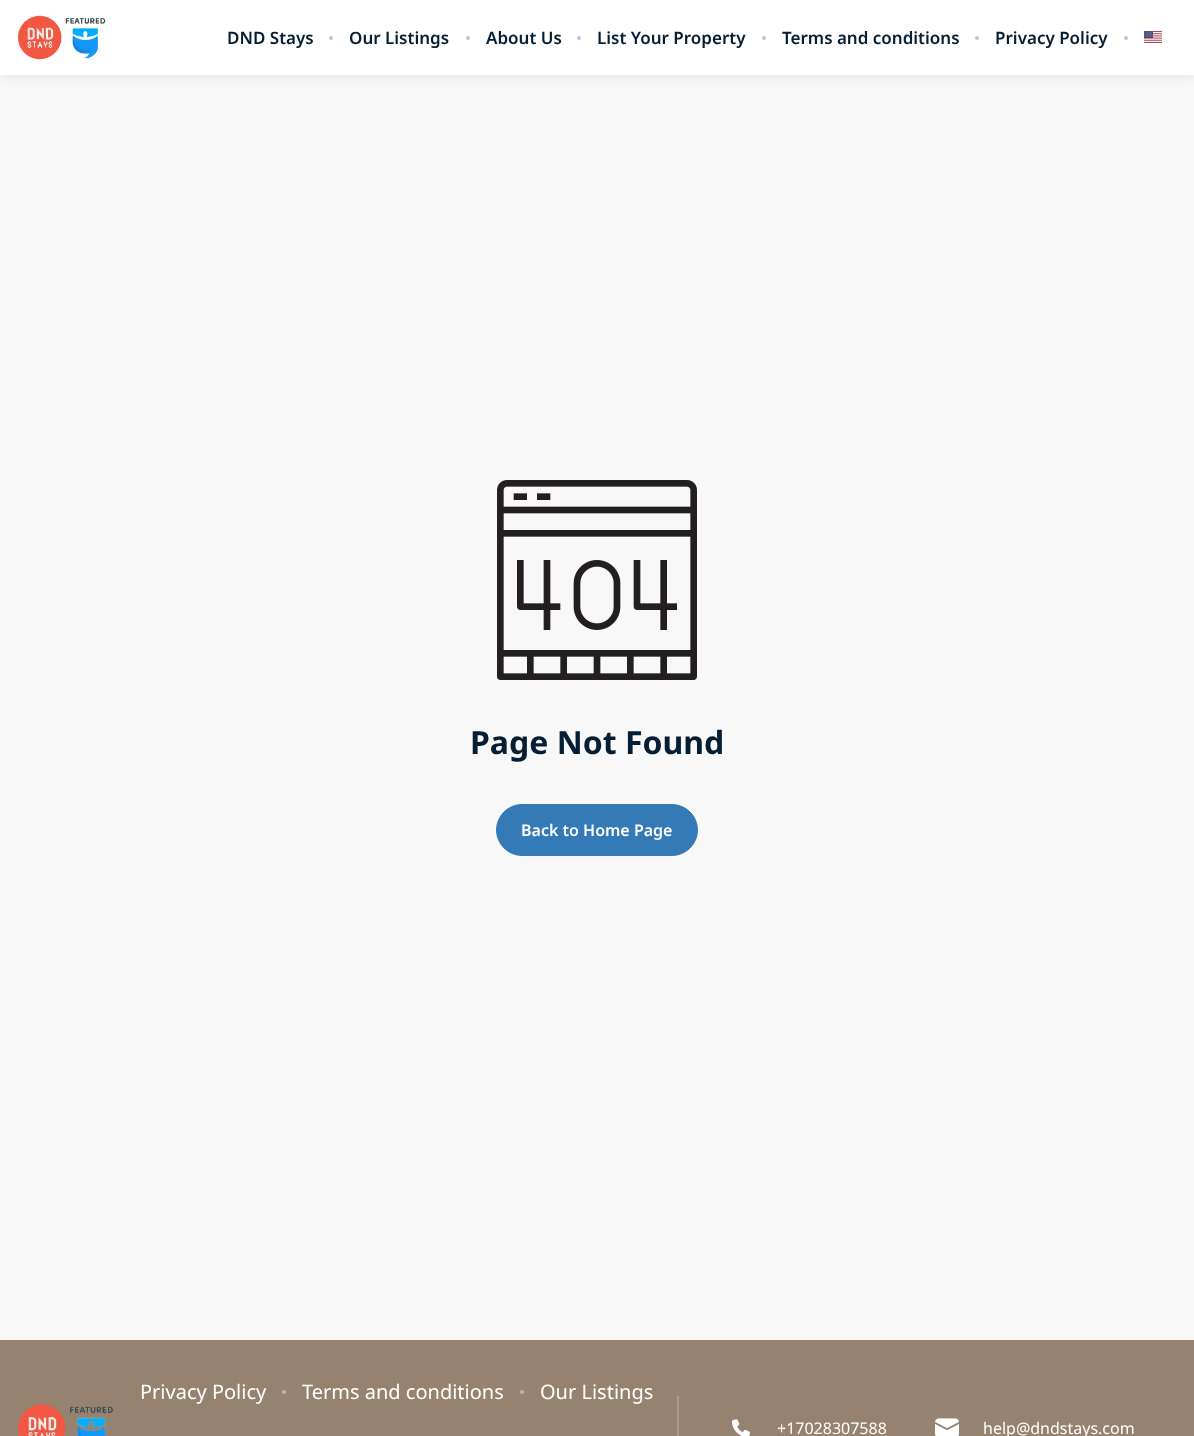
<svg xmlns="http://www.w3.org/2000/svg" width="1194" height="1436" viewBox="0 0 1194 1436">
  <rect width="100%" height="100%" fill="#f8f8f8"/>
  <path d="M0 2h1194v75H0z" fill="#00000014" filter="blur(6px)"/>
  <path d="M0 0h1194v75H0z" fill="#fff"/>
  <image x="18" y="15" width="88" height="45" href="img/1.png"/>
  <circle cx="331" cy="38" r="2" fill="#adcae2"/>
  <circle cx="468" cy="38" r="2" fill="#adcae2"/>
  <circle cx="579" cy="38" r="2" fill="#adcae2"/>
  <circle cx="764" cy="38" r="2" fill="#adcae2"/>
  <circle cx="977" cy="38" r="2" fill="#adcae2"/>
  <circle cx="1126" cy="38" r="2" fill="#adcae2"/>
  <image x="1144" y="31" width="18" height="12" href="img/2.png"/>
  <image x="497" y="480" width="200" height="200" href="img/3.png"/>
  <rect x="496.5" y="804.5" width="201" height="51" rx="25.5" fill="#337ab7" stroke="#337ab7"/>
  <path d="M0 1340h1194v96H0z" fill="#95836f"/>
  <circle cx="284" cy="1392" r="2" fill="#bfb5a9"/>
  <circle cx="522" cy="1392" r="2" fill="#bfb5a9"/>
  <image x="18" y="1404" width="96" height="32" href="img/4.png"/>
  <path d="M677 1396h2v40H677z" fill="#aa9c8c"/>
  <image x="732" y="1419" width="18" height="17" href="img/5.png"/>
  <image x="935" y="1418" width="24" height="18" href="img/6.png"/>
  <g font-family="Noto Sans" font-size="17" font-weight="600" fill="#051e33">
    <text x="227" y="44">DND Stays</text>
    <text x="349" y="44">Our Listings</text>
    <text x="486" y="44">About Us</text>
    <text x="597" y="44">List Your Property</text>
    <text x="782" y="44">Terms and conditions</text>
    <text x="995" y="44">Privacy Policy</text>
  </g>
  <text x="470" y="754" font-family="Noto Sans" font-size="32" font-weight="bold" fill="#051e33">Page Not Found</text>
  <text x="521" y="836" font-family="Noto Sans" font-size="16" font-weight="600" fill="#fff">Back to Home Page</text>
  <g font-family="Noto Sans" font-size="20" fill="#fff">
    <text x="140" y="1399">Privacy Policy</text>
    <text x="302" y="1399">Terms and conditions</text>
    <text x="540" y="1399">Our Listings</text>
  </g>
  <g font-family="Noto Sans" font-size="16" fill="#fff">
    <text x="777" y="1434">+17028307588</text>
    <text x="983" y="1434">help@dndstays.com</text>
  </g>
</svg>
